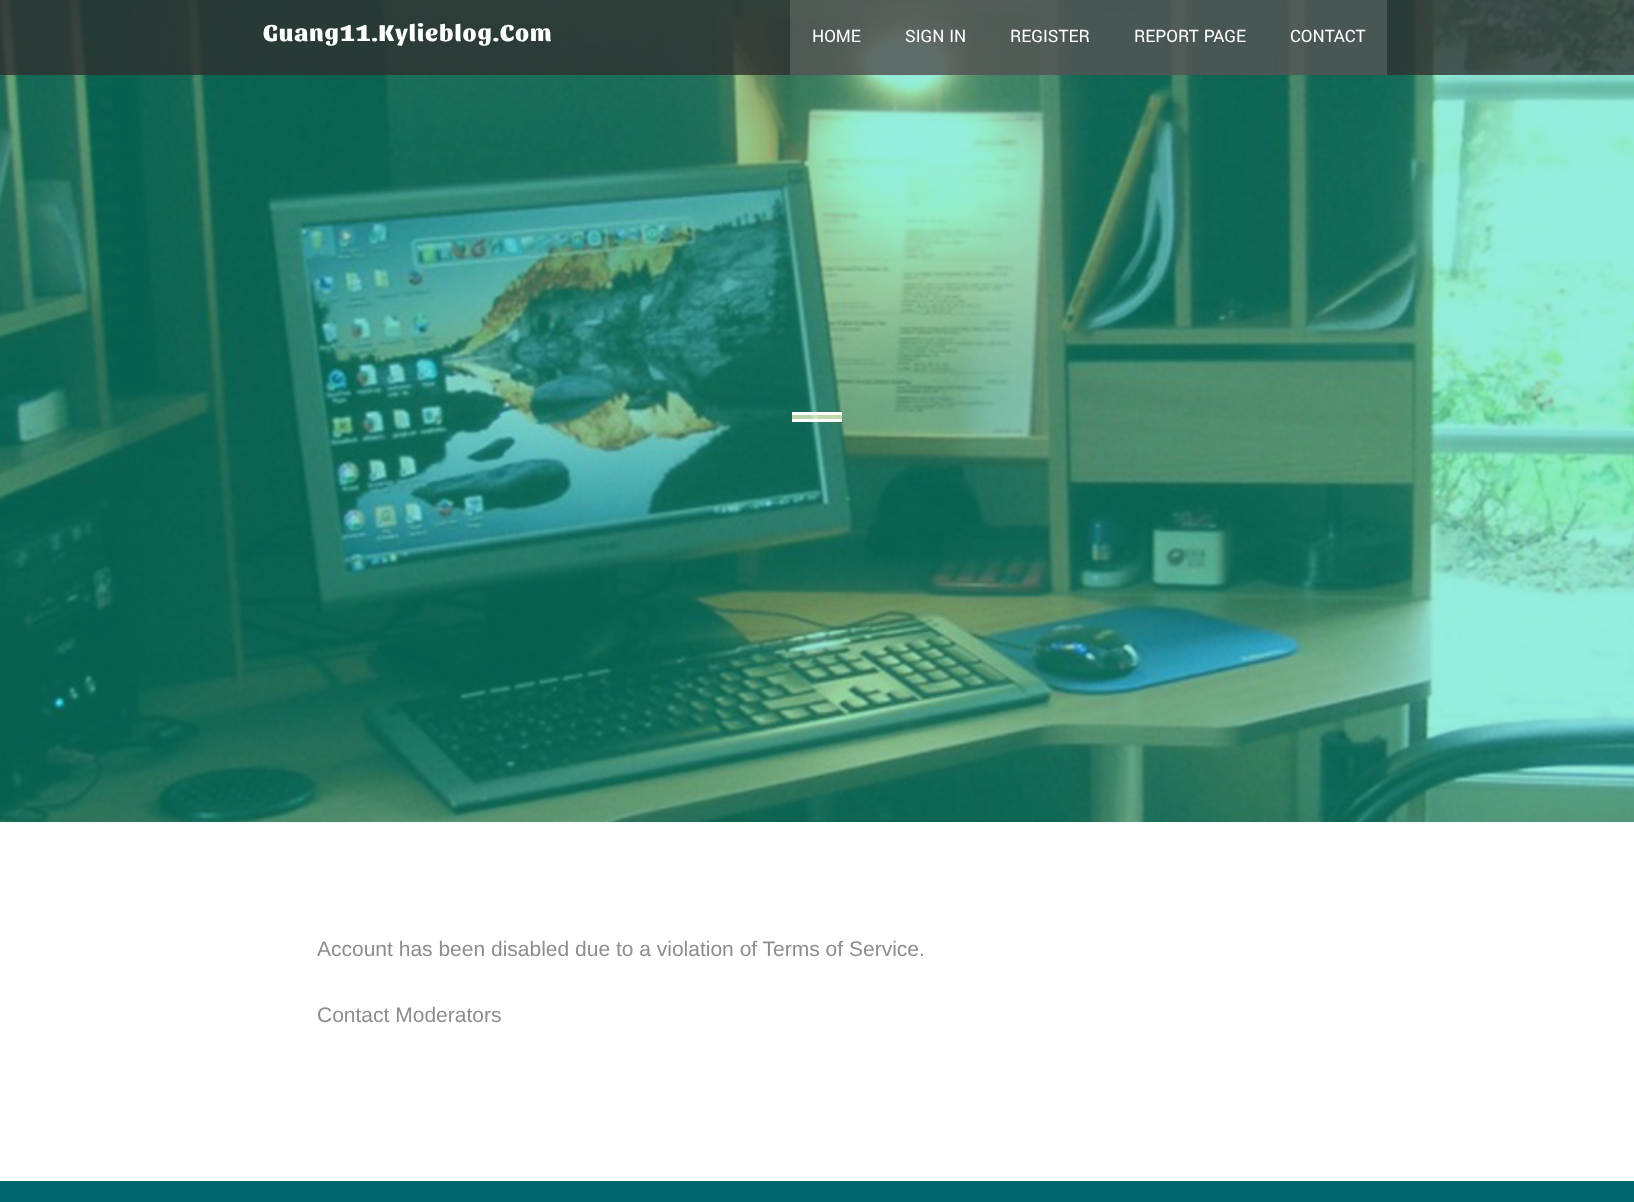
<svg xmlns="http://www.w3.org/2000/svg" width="1634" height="1202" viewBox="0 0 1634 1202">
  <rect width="100%" height="100%" fill="#fff"/>
  <image x="0" y="0" width="1634" height="822" href="img/1.png"/>
  <path d="M0 0h1634v75H0z" fill="#2f2f2fcc"/>
  <path d="M790 0h93v75H790z" fill="#c7c7c733"/>
  <path d="M883 0h105v75H883z" fill="#c7c7c733"/>
  <path d="M988 0h124v75H988z" fill="#c7c7c733"/>
  <path d="M1112 0h156v75H1112z" fill="#c7c7c733"/>
  <path d="M1268 0h119v75H1268z" fill="#c7c7c733"/>
  <path d="M792 415h50v4H792z" fill="#ffffc7b3"/>
  <path d="M792 412h50v3H792z" fill="#fff"/>
  <path d="M792 419h50v3H792z" fill="#fff"/>
  <path d="M0 1181h1634v21H0z" fill="#00656e"/>
  <text x="263" y="41" font-family="Sansita" font-size="24" font-weight="800" letter-spacing="1" fill="#fff">Guang11.Kylieblog.Com</text>
  <g font-family="Yantramanav" font-size="19" fill="#fff">
    <text x="812" y="42">HOME</text>
    <text x="905" y="42">SIGN IN</text>
    <text x="1010" y="42">REGISTER</text>
    <text x="1134" y="42">REPORT PAGE</text>
    <text x="1290" y="42">CONTACT</text>
  </g>
  <g font-family="Liberation Sans" font-size="21" fill="#8d8d8d">
    <text x="317" y="956">Account has been disabled due to a violation of Terms of Service.</text>
    <text x="317" y="1022">Contact Moderators</text>
  </g>
</svg>
